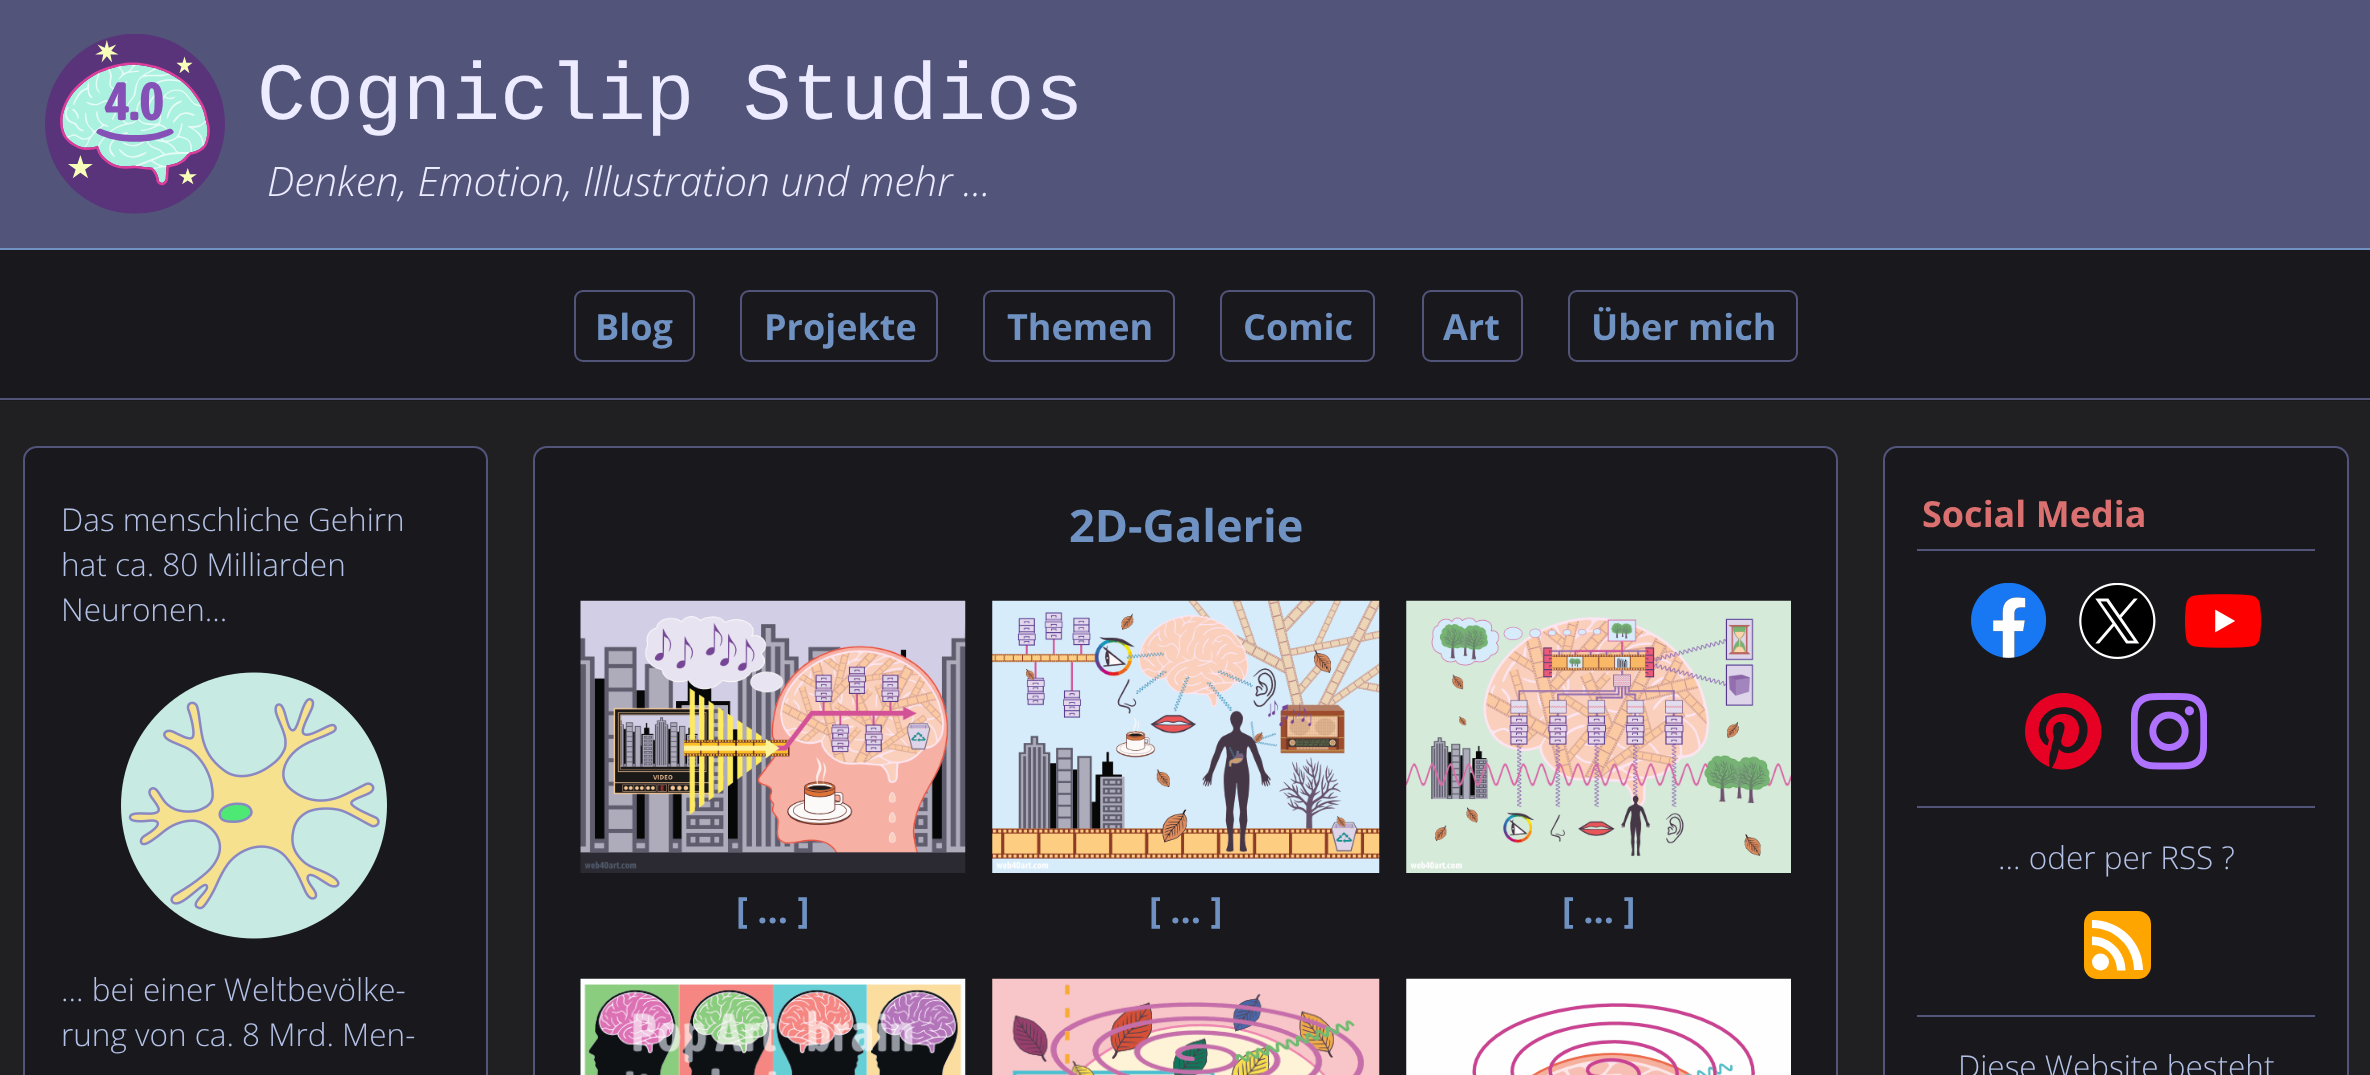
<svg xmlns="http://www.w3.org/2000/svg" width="2370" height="1075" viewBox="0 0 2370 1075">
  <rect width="100%" height="100%" fill="#202023"/>
  <path d="M0 0h2370v248H0z" fill="#52547a"/>
  <path d="M0 248h2370v2H0z" fill="#7092c2"/>
  <image x="45" y="34" width="180" height="180" href="img/1.png"/>
  <path d="M0 250h2370v151H0z" fill="#19181c"/>
  <path d="M0 398h2370v2H0z" fill="#52547a"/>
  <rect x="575" y="291" width="119" height="70" rx="8" fill="none" stroke="#52547a" stroke-width="2"/>
  <rect x="741" y="291" width="196" height="70" rx="8" fill="none" stroke="#52547a" stroke-width="2"/>
  <rect x="984" y="291" width="190" height="70" rx="8" fill="none" stroke="#52547a" stroke-width="2"/>
  <rect x="1221" y="291" width="153" height="70" rx="8" fill="none" stroke="#52547a" stroke-width="2"/>
  <rect x="1423" y="291" width="99" height="70" rx="8" fill="none" stroke="#52547a" stroke-width="2"/>
  <rect x="1569" y="291" width="228" height="70" rx="8" fill="none" stroke="#52547a" stroke-width="2"/>
  <rect x="24" y="447" width="463" height="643" rx="13" fill="#19181c" stroke="#52547a" stroke-width="2"/>
  <image x="121" y="672" width="266" height="267" href="img/2.png"/>
  <rect x="534" y="447" width="1303" height="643" rx="13" fill="#19181c" stroke="#52547a" stroke-width="2"/>
  <image x="580" y="600" width="386" height="273" href="img/3.png"/>
  <image x="992" y="600" width="388" height="273" href="img/4.png"/>
  <image x="1406" y="600" width="385" height="273" href="img/5.png"/>
  <image x="580" y="978" width="386" height="97" href="img/6.png"/>
  <image x="992" y="978" width="388" height="97" href="img/7.png"/>
  <image x="1406" y="978" width="385" height="97" href="img/8.png"/>
  <rect x="1884" y="447" width="464" height="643" rx="13" fill="#19181c" stroke="#52547a" stroke-width="2"/>
  <path d="M1917 549h398v2H1917z" fill="#52547a"/>
  <image x="1971" y="583" width="76" height="75" href="img/9.png"/>
  <image x="2079" y="583" width="77" height="76" href="img/10.png"/>
  <image x="2185" y="594" width="76" height="54" href="img/11.png"/>
  <image x="2025" y="693" width="77" height="77" href="img/12.png"/>
  <image x="2131" y="693" width="76" height="77" href="img/13.png"/>
  <path d="M1917 806h398v2H1917z" fill="#52547a"/>
  <rect x="2084" y="911" width="67" height="68" rx="13" fill="#ffa500"/>
  <circle cx="2100.5" cy="962" r="8.5" fill="#fff"/>
  <path d="M2092 945C2106 945 2117 956.5 2117 970.5H2125.5C2125.5 951.5 2110.5 936.5 2092 936.5Z" fill="#fff"/>
  <path d="M2092 928C2115 928 2134 947 2134 970H2143C2143 942 2120 920 2092 920Z" fill="#fff"/>
  <path d="M1917 1015h398v2H1917z" fill="#52547a"/>
  <text x="257" y="119" font-family="Liberation Mono" font-size="81" fill="#ecebff">Cogniclip Studios</text>
  <text x="267" y="196" font-family="Open Sans" font-size="40.5" font-weight="300" font-style="italic" fill="#ecebff">Denken, Emotion, Illustration und mehr ...</text>
  <g font-family="Open Sans" font-size="36" font-weight="bold" fill="#7092c2">
    <text x="595" y="340">Blog</text>
    <text x="764" y="340">Projekte</text>
    <text x="1007" y="340">Themen</text>
    <text x="1243" y="340">Comic</text>
    <text x="1443" y="340">Art</text>
    <text x="1591" y="340">Über mich</text>
  </g>
  <g font-family="Open Sans" font-size="31.5" font-weight="300" fill="#b3c1e6">
    <text x="61" y="531">Das menschliche Gehirn</text>
    <text x="61" y="576">hat ca. 80 Milliarden</text>
    <text x="61" y="621">Neuronen...</text>
    <text x="61" y="1001">... bei einer Weltbevölke-</text>
    <text x="61" y="1046">rung von ca. 8 Mrd. Men-</text>
  </g>
  <text x="1069" y="542" font-family="Open Sans" font-size="45" font-weight="bold" fill="#7092c2">2D-Galerie</text>
  <g font-family="Open Sans" font-size="36" font-weight="bold" fill="#7092c2">
    <text x="736" y="923">[ ... ]</text>
    <text x="1149" y="923">[ ... ]</text>
    <text x="1562" y="923">[ ... ]</text>
  </g>
  <text x="1922" y="527" font-family="Open Sans" font-size="36" font-weight="bold" fill="#db7070">Social Media</text>
  <g font-family="Open Sans" font-size="31.5" font-weight="300" fill="#b3c1e6">
    <text x="1998" y="869">... oder per RSS ?</text>
    <text x="1958" y="1078">Diese Website besteht</text>
  </g>
</svg>
